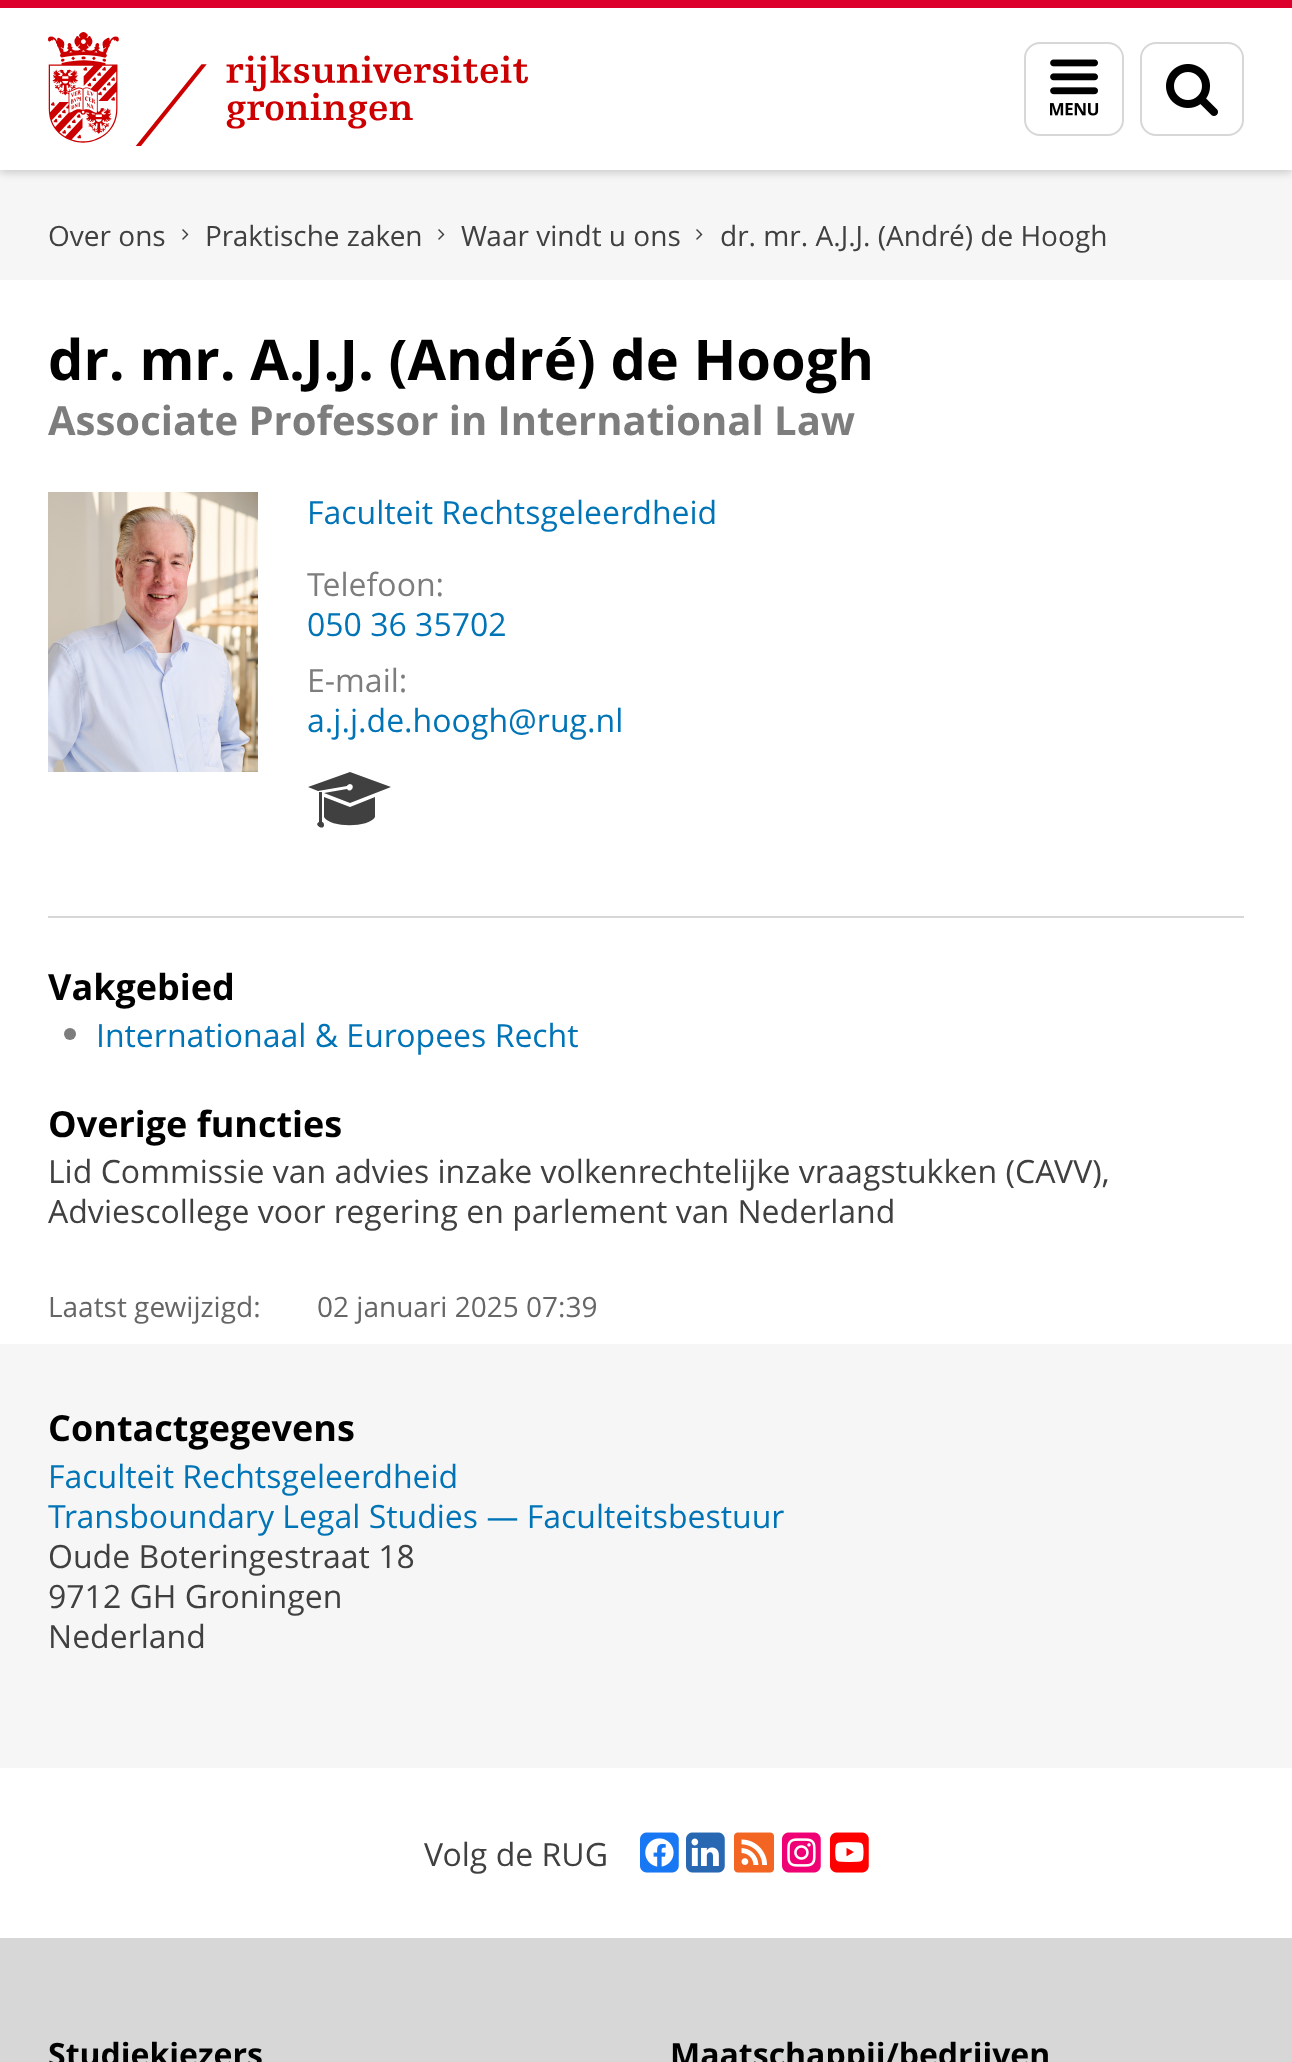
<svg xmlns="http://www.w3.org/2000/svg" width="1292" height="2062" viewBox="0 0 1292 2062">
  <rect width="100%" height="100%" fill="#f6f6f6"/>
  <path d="M0 2h1292v170H0z" fill="#00000033" filter="blur(5px)"/>
  <path d="M0 8h1292v162H0z" fill="#fff"/>
  <path d="M0 0h1292v8H0z" fill="#dc002d"/>
  <image x="48" y="32" width="480" height="114" href="img/1.png"/>
  <rect x="1025" y="43" width="98" height="92" rx="15" fill="none" stroke="#d7d7d7" stroke-width="2"/>
  <image x="1050" y="59" width="49" height="57" href="img/2.png"/>
  <rect x="1141" y="43" width="102" height="92" rx="15" fill="none" stroke="#d7d7d7" stroke-width="2"/>
  <image x="1166" y="64" width="52" height="52" href="img/3.png"/>
  <image x="182" y="229" width="7" height="11" href="img/4.png"/>
  <image x="438" y="229" width="7" height="11" href="img/4.png"/>
  <image x="696" y="229" width="7" height="11" href="img/4.png"/>
  <path d="M0 280h1292v1064H0z" fill="#fff"/>
  <image x="48" y="492" width="210" height="280" href="img/5.png"/>
  <path d="M324 797V817C330 828 369 828 375 817V797L350 807ZM322 822V792H319V822C313 825 324 831 324 825C324 823 323 822 322 822ZM347 786C347 785 349 784 350 784C356 785 351 794 347 789L324 793L350 803L391 787L350 772L308 787L318 791Z" fill="#404040"/>
  <path d="M48 916h1196v2H48z" fill="#d7d7d7"/>
  <circle cx="70" cy="1034" r="6" fill="#7d7d7d"/>
  <path d="M0 1768h1292v170H0z" fill="#fff"/>
  <image x="640" y="1832" width="39" height="41" href="img/6.png"/>
  <image x="686" y="1832" width="39" height="41" href="img/7.png"/>
  <image x="734" y="1832" width="40" height="41" href="img/8.png"/>
  <image x="782" y="1832" width="39" height="41" href="img/9.png"/>
  <image x="830" y="1832" width="39" height="41" href="img/10.png"/>
  <path d="M0 1938h1292v124H0z" fill="#d7d7d7"/>
  <g font-family="Open Sans" font-size="28" fill="#404040">
    <text x="48" y="246">Over ons</text>
    <text x="205" y="246">Praktische zaken</text>
    <text x="461" y="246">Waar vindt u ons</text>
    <text x="720" y="246">dr. mr. A.J.J. (André) de Hoogh</text>
  </g>
  <text x="48" y="380" font-family="Open Sans" font-size="56" font-weight="bold" fill="#000">dr. mr. A.J.J. (André) de Hoogh</text>
  <text x="48" y="435" font-family="Open Sans" font-size="40" font-weight="bold" fill="#7d7d7d">Associate Professor in International Law</text>
  <text x="307" y="524" font-family="Open Sans" font-size="32" fill="#0074b6">Faculteit Rechtsgeleerdheid</text>
  <text x="307" y="596" font-family="Open Sans" font-size="32" fill="#7d7d7d">Telefoon:</text>
  <text x="307" y="636" font-family="Open Sans" font-size="32" fill="#0074b6">050 36 35702</text>
  <text x="307" y="692" font-family="Open Sans" font-size="32" fill="#7d7d7d">E-mail:</text>
  <text x="307" y="732" font-family="Open Sans" font-size="32" fill="#0074b6">a.j.j.de.hoogh@rug.nl</text>
  <text x="48" y="1000" font-family="Open Sans" font-size="36" font-weight="bold" fill="#000">Vakgebied</text>
  <text x="96" y="1047" font-family="Open Sans" font-size="32" fill="#0074b6">Internationaal &amp; Europees Recht</text>
  <text x="48" y="1137" font-family="Open Sans" font-size="36" font-weight="bold" fill="#000">Overige functies</text>
  <g font-family="Open Sans" font-size="32" fill="#404040">
    <text x="48" y="1183">Lid Commissie van advies inzake volkenrechtelijke vraagstukken (CAVV),</text>
    <text x="48" y="1223">Adviescollege voor regering en parlement van Nederland</text>
  </g>
  <g font-family="Open Sans" font-size="28" fill="#666">
    <text x="48" y="1317">Laatst gewijzigd:</text>
    <text x="317" y="1317">02 januari 2025 07:39</text>
  </g>
  <text x="48" y="1441" font-family="Open Sans" font-size="36" font-weight="bold" fill="#000">Contactgegevens</text>
  <g font-family="Open Sans" font-size="32" fill="#0074b6">
    <text x="48" y="1488">Faculteit Rechtsgeleerdheid</text>
    <text x="48" y="1528">Transboundary Legal Studies — Faculteitsbestuur</text>
  </g>
  <g font-family="Open Sans" font-size="32" fill="#404040">
    <text x="48" y="1568">Oude Boteringestraat 18</text>
    <text x="48" y="1608">9712 GH Groningen</text>
    <text x="48" y="1648">Nederland</text>
    <text x="424" y="1866">Volg de RUG</text>
  </g>
  <g font-family="Open Sans" font-size="32" font-weight="bold" fill="#000">
    <text x="48" y="2066">Studiekiezers</text>
    <text x="670" y="2066">Maatschappij/bedrijven</text>
  </g>
</svg>
